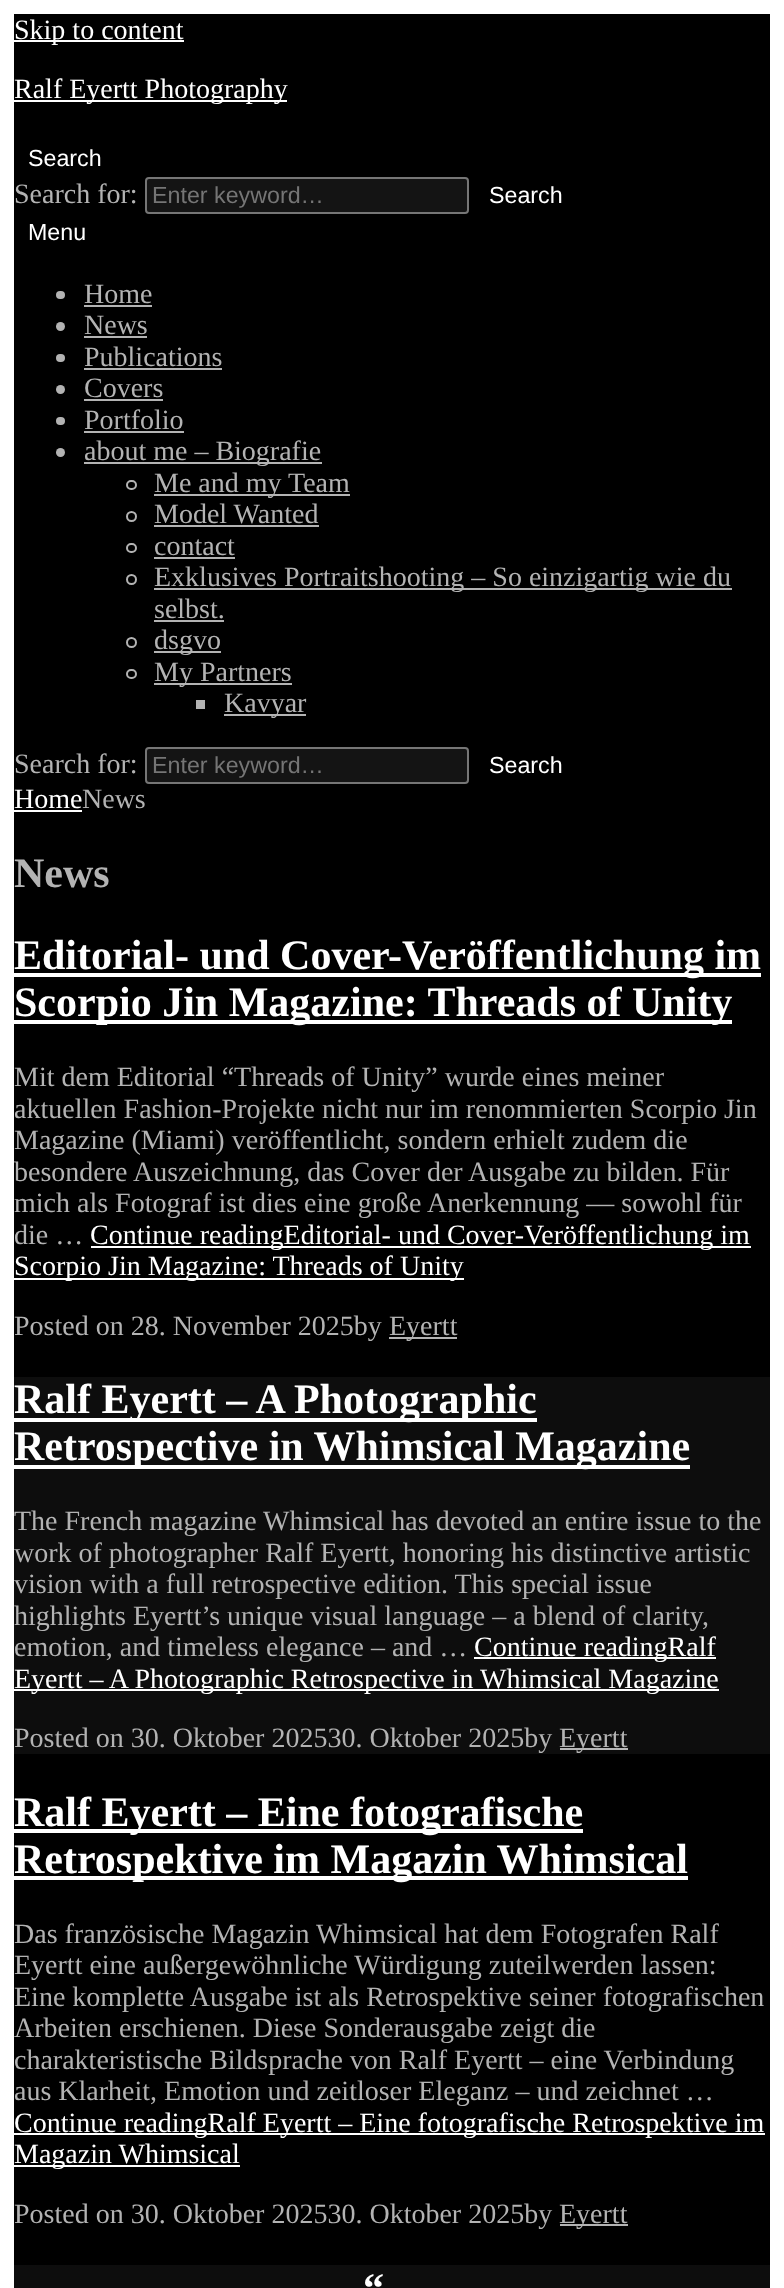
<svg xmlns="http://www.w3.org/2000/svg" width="784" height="2288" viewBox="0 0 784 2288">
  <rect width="100%" height="100%" fill="#fff"/>
  <path d="M14 14h756v2251H14z" fill="#000"/>
  <path d="M14 40h170v2H14z" fill="#fff"/>
  <path d="M14 100h273v2H14z" fill="#fff"/>
  <rect x="146" y="178" width="322" height="35" rx="3" fill="#141414" stroke="#767676" stroke-width="2"/>
  <rect x="56" y="291" width="9" height="8" rx="4" fill="#b3b3b3"/>
  <path d="M84 305h68v2H84z" fill="#b3b3b3"/>
  <circle cx="60.5" cy="326.5" r="4.5" fill="#b3b3b3"/>
  <path d="M84 336h63v2H84z" fill="#b3b3b3"/>
  <rect x="56" y="354" width="9" height="8" rx="4" fill="#b3b3b3"/>
  <path d="M84 368h138v2H84z" fill="#b3b3b3"/>
  <circle cx="60.5" cy="389.5" r="4.5" fill="#b3b3b3"/>
  <path d="M84 399h79v2H84z" fill="#b3b3b3"/>
  <rect x="56" y="417" width="9" height="8" rx="4" fill="#b3b3b3"/>
  <path d="M84 431h100v2H84z" fill="#b3b3b3"/>
  <circle cx="60.5" cy="452.5" r="4.5" fill="#b3b3b3"/>
  <path d="M84 462h238v2H84z" fill="#b3b3b3"/>
  <rect x="127" y="481" width="9" height="8" rx="4" fill="none" stroke="#b3b3b3" stroke-width="2"/>
  <path d="M154 494h196v2H154z" fill="#b3b3b3"/>
  <circle cx="131.5" cy="516.5" r="4.5" fill="none" stroke="#b3b3b3" stroke-width="2"/>
  <path d="M154 525h165v2H154z" fill="#b3b3b3"/>
  <rect x="127" y="544" width="9" height="8" rx="4" fill="none" stroke="#b3b3b3" stroke-width="2"/>
  <path d="M154 557h81v2H154z" fill="#b3b3b3"/>
  <circle cx="131.5" cy="579.5" r="4.5" fill="none" stroke="#b3b3b3" stroke-width="2"/>
  <path d="M154 588h578v2H154z" fill="#b3b3b3"/>
  <path d="M154 620h70v2H154z" fill="#b3b3b3"/>
  <circle cx="131.5" cy="642.5" r="4.5" fill="none" stroke="#b3b3b3" stroke-width="2"/>
  <path d="M154 651h67v2H154z" fill="#b3b3b3"/>
  <rect x="127" y="670" width="9" height="8" rx="4" fill="none" stroke="#b3b3b3" stroke-width="2"/>
  <path d="M154 683h138v2H154z" fill="#b3b3b3"/>
  <path d="M196 700h9v9H196z" fill="#b3b3b3"/>
  <path d="M224 714h82v2H224z" fill="#b3b3b3"/>
  <rect x="146" y="748" width="322" height="35" rx="3" fill="#141414" stroke="#767676" stroke-width="2"/>
  <path d="M14 810h68v2H14z" fill="#fff"/>
  <path d="M14 973h747v4H14z" fill="#fff"/>
  <path d="M14 1020h718v4H14z" fill="#fff"/>
  <path d="M91 1246h660v2H91z" fill="#fff"/>
  <path d="M14 1278h450v2H14z" fill="#fff"/>
  <path d="M389 1337h68v2H389z" fill="#b3b3b3"/>
  <path d="M14 1377h756v377H14z" fill="#0d0d0d"/>
  <path d="M14 1418h523v4H14z" fill="#fff"/>
  <path d="M14 1465h676v4H14z" fill="#fff"/>
  <path d="M474 1657h242v2H474z" fill="#fff"/>
  <path d="M14 1689h705v2H14z" fill="#fff"/>
  <path d="M560 1748h68v2H560z" fill="#b6b6b6"/>
  <path d="M14 1829h569v4H14z" fill="#fff"/>
  <path d="M14 1876h674v4H14z" fill="#fff"/>
  <path d="M14 2133h751v2H14z" fill="#fff"/>
  <path d="M14 2165h226v2H14z" fill="#fff"/>
  <path d="M560 2224h68v2H560z" fill="#b3b3b3"/>
  <path d="M14 2265h756v23H14z" fill="#0d0d0d"/>
  <g font-family="Liberation Serif" font-size="28" fill="#fff">
    <text x="14" y="39">Skip to content</text>
    <text x="14" y="98">Ralf Eyertt Photography</text>
  </g>
  <text x="28" y="166" font-family="Liberation Sans" font-size="23.25" fill="#fff">Search</text>
  <text x="14" y="203" font-family="Liberation Serif" font-size="28" fill="#b3b3b3">Search for:</text>
  <text x="152" y="203" font-family="Liberation Sans" font-size="23.25" fill="#757575">Enter keyword…</text>
  <g font-family="Liberation Sans" font-size="23.25" fill="#fff">
    <text x="489" y="203">Search</text>
    <text x="28" y="240">Menu</text>
  </g>
  <g font-family="Liberation Serif" font-size="28" fill="#b3b3b3">
    <text x="84" y="303">Home</text>
    <text x="84" y="334">News</text>
    <text x="84" y="366">Publications</text>
    <text x="84" y="397">Covers</text>
    <text x="84" y="429">Portfolio</text>
    <text x="84" y="460">about me – Biografie</text>
    <text x="154" y="492">Me and my Team</text>
    <text x="154" y="523">Model Wanted</text>
    <text x="154" y="555">contact</text>
    <text x="154" y="586">Exklusives Portraitshooting – So einzigartig wie du</text>
    <text x="154" y="618">selbst.</text>
    <text x="154" y="649">dsgvo</text>
    <text x="154" y="681">My Partners</text>
    <text x="224" y="712">Kavyar</text>
    <text x="14" y="773">Search for:</text>
  </g>
  <text x="152" y="773" font-family="Liberation Sans" font-size="23.25" fill="#757575">Enter keyword…</text>
  <text x="489" y="773" font-family="Liberation Sans" font-size="23.25" fill="#fff">Search</text>
  <text x="14" y="808" font-family="Liberation Serif" font-size="28" fill="#fff">Home</text>
  <text x="82" y="808" font-family="Liberation Serif" font-size="28" fill="#b3b3b3">News</text>
  <text x="14" y="887" font-family="Liberation Serif" font-size="42" font-weight="bold" fill="#b3b3b3">News</text>
  <g font-family="Liberation Serif" font-size="42" font-weight="bold" fill="#fff">
    <text x="14" y="969">Editorial- und Cover-Veröffentlichung im</text>
    <text x="14" y="1016">Scorpio Jin Magazine: Threads of Unity</text>
  </g>
  <g font-family="Liberation Serif" font-size="28" fill="#b3b3b3">
    <text x="14" y="1086">Mit dem Editorial “Threads of Unity” wurde eines meiner</text>
    <text x="14" y="1118">aktuellen Fashion-Projekte nicht nur im renommierten Scorpio Jin</text>
    <text x="14" y="1149">Magazine (Miami) veröffentlicht, sondern erhielt zudem die</text>
    <text x="14" y="1181">besondere Auszeichnung, das Cover der Ausgabe zu bilden. Für</text>
    <text x="14" y="1212">mich als Fotograf ist dies eine große Anerkennung — sowohl für</text>
    <text x="14" y="1244">die …</text>
  </g>
  <g font-family="Liberation Serif" font-size="28" fill="#fff">
    <text x="90" y="1244">Continue readingEditorial- und Cover-Veröffentlichung im</text>
    <text x="14" y="1275">Scorpio Jin Magazine: Threads of Unity</text>
  </g>
  <g font-family="Liberation Serif" font-size="28" fill="#b3b3b3">
    <text x="14" y="1335">Posted on 28. November 2025by</text>
    <text x="389" y="1335">Eyertt</text>
  </g>
  <g font-family="Liberation Serif" font-size="42" font-weight="bold" fill="#fff">
    <text x="14" y="1413">Ralf Eyertt – A Photographic</text>
    <text x="14" y="1460">Retrospective in Whimsical Magazine</text>
  </g>
  <g font-family="Liberation Serif" font-size="28" fill="#b3b3b3">
    <text x="14" y="1530">The French magazine Whimsical has devoted an entire issue to the</text>
    <text x="14" y="1562">work of photographer Ralf Eyertt, honoring his distinctive artistic</text>
    <text x="14" y="1593">vision with a full retrospective edition. This special issue</text>
    <text x="14" y="1625">highlights Eyertt’s unique visual language – a blend of clarity,</text>
    <text x="14" y="1656">emotion, and timeless elegance – and …</text>
  </g>
  <g font-family="Liberation Serif" font-size="28" fill="#fff">
    <text x="474" y="1656">Continue readingRalf</text>
    <text x="14" y="1688">Eyertt – A Photographic Retrospective in Whimsical Magazine</text>
  </g>
  <g font-family="Liberation Serif" font-size="28" fill="#b3b3b3">
    <text x="14" y="1747">Posted on 30. Oktober 202530. Oktober 2025by</text>
    <text x="559" y="1747">Eyertt</text>
  </g>
  <g font-family="Liberation Serif" font-size="42" font-weight="bold" fill="#fff">
    <text x="14" y="1826">Ralf Eyertt – Eine fotografische</text>
    <text x="14" y="1873">Retrospektive im Magazin Whimsical</text>
  </g>
  <g font-family="Liberation Serif" font-size="28" fill="#b3b3b3">
    <text x="14" y="1943">Das französische Magazin Whimsical hat dem Fotografen Ralf</text>
    <text x="14" y="1974">Eyertt eine außergewöhnliche Würdigung zuteilwerden lassen:</text>
    <text x="14" y="2006">Eine komplette Ausgabe ist als Retrospektive seiner fotografischen</text>
    <text x="14" y="2037">Arbeiten erschienen. Diese Sonderausgabe zeigt die</text>
    <text x="14" y="2069">charakteristische Bildsprache von Ralf Eyertt – eine Verbindung</text>
    <text x="14" y="2100">aus Klarheit, Emotion und zeitloser Eleganz – und zeichnet …</text>
  </g>
  <g font-family="Liberation Serif" font-size="28" fill="#fff">
    <text x="14" y="2132">Continue readingRalf Eyertt – Eine fotografische Retrospektive im</text>
    <text x="14" y="2163">Magazin Whimsical</text>
  </g>
  <g font-family="Liberation Serif" font-size="28" fill="#b3b3b3">
    <text x="14" y="2223">Posted on 30. Oktober 202530. Oktober 2025by</text>
    <text x="559" y="2223">Eyertt</text>
  </g>
  <text x="363" y="2302" font-family="Liberation Serif" font-size="42" font-weight="bold" fill="#fff">“</text>
</svg>
